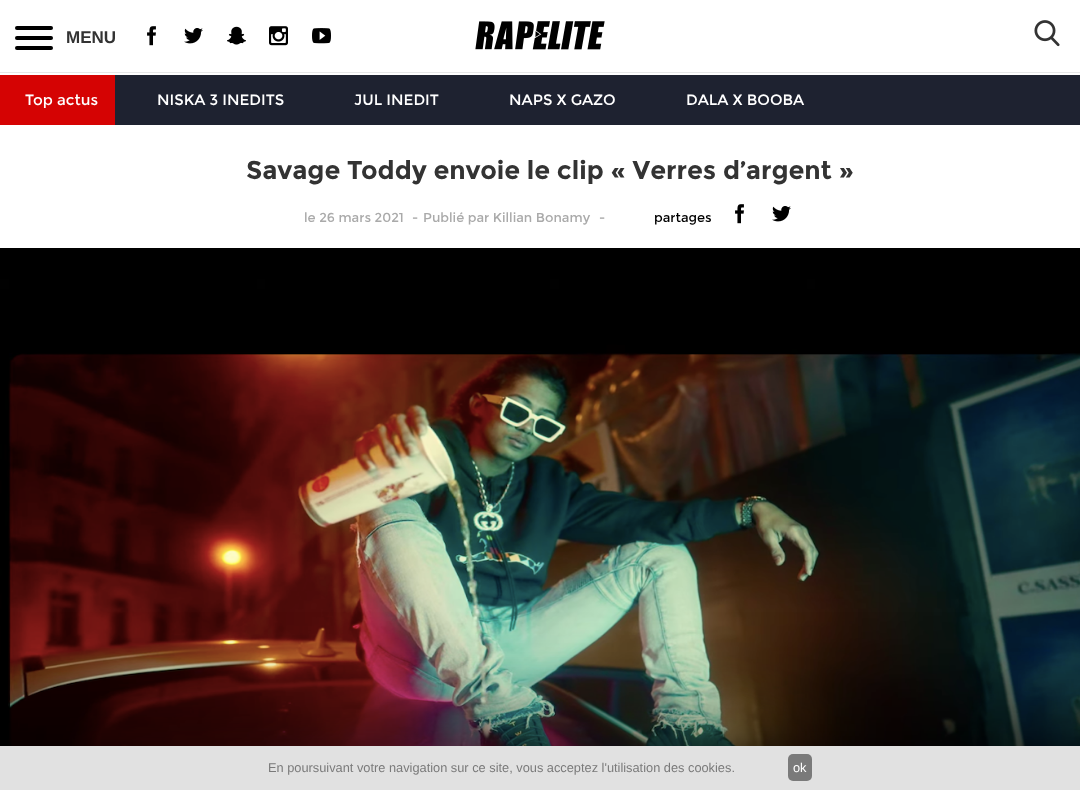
<svg xmlns="http://www.w3.org/2000/svg" width="1080" height="790" viewBox="0 0 1080 790">
  <rect width="100%" height="100%" fill="#fff"/>
  <path d="M0 72h1080v1H0z" fill="#e7e7e7"/>
  <rect x="15" y="26" width="38" height="4" rx="2" fill="#000"/>
  <rect x="15" y="36" width="38" height="4" rx="2" fill="#000"/>
  <rect x="15" y="46" width="38" height="4" rx="2" fill="#000"/>
  <image x="147" y="26" width="9" height="20" href="img/1.png"/>
  <image x="184" y="28" width="19" height="16" href="img/2.png"/>
  <image x="227" y="26" width="19" height="19" href="img/3.png"/>
  <image x="269" y="26" width="19" height="20" href="img/4.png"/>
  <image x="312" y="28" width="19" height="16" href="img/5.png"/>
  <image x="475" y="21" width="130" height="29" href="img/6.png"/>
  <image x="1034" y="20" width="26" height="27" href="img/7.png"/>
  <path d="M115 75h965v50H115z" fill="#1e2230"/>
  <path d="M0 75h115v50H0z" fill="#d50303"/>
  <image x="735" y="204" width="9" height="20" href="img/1.png"/>
  <image x="772" y="206" width="19" height="16" href="img/2.png"/>
  <image x="0" y="248" width="1080" height="498" href="img/8.png"/>
  <path d="M-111 757h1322v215H-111z" fill="#000" filter="blur(60.5px)"/>
  <path d="M0 746h1080v44H0z" fill="#e1e1e1"/>
  <rect x="788" y="754" width="24" height="27" rx="5" fill="#7a7a7a"/>
  <text x="66" y="43" font-family="Liberation Sans" font-size="17" font-weight="bold" fill="#333">MENU</text>
  <g font-family="Montserrat" font-size="15" fill="#fff">
    <text x="25" y="105">Top actus</text>
    <text x="157" y="105">NISKA 3 INEDITS</text>
    <text x="354" y="105">JUL INEDIT</text>
    <text x="509" y="105">NAPS X GAZO</text>
    <text x="686" y="105">DALA X BOOBA</text>
  </g>
  <text x="246" y="179" font-family="Montserrat" font-size="25.6" font-weight="bold" fill="#333">Savage Toddy envoie le clip « Verres d’argent »</text>
  <g font-family="Montserrat" font-size="13" fill="#aaa">
    <text x="304" y="222">le 26 mars 2021</text>
    <text x="412" y="222">-</text>
    <text x="423" y="222">Publié par Killian Bonamy</text>
    <text x="599" y="222">-</text>
  </g>
  <text x="654" y="222" font-family="Montserrat" font-size="13" fill="#000">partages</text>
  <text x="268" y="772" font-family="Liberation Sans" font-size="12.8" fill="#7a7a7a">En poursuivant votre navigation sur ce site, vous acceptez l'utilisation des cookies.</text>
  <text x="793" y="772" font-family="Liberation Sans" font-size="12.8" fill="#fff">ok</text>
</svg>
